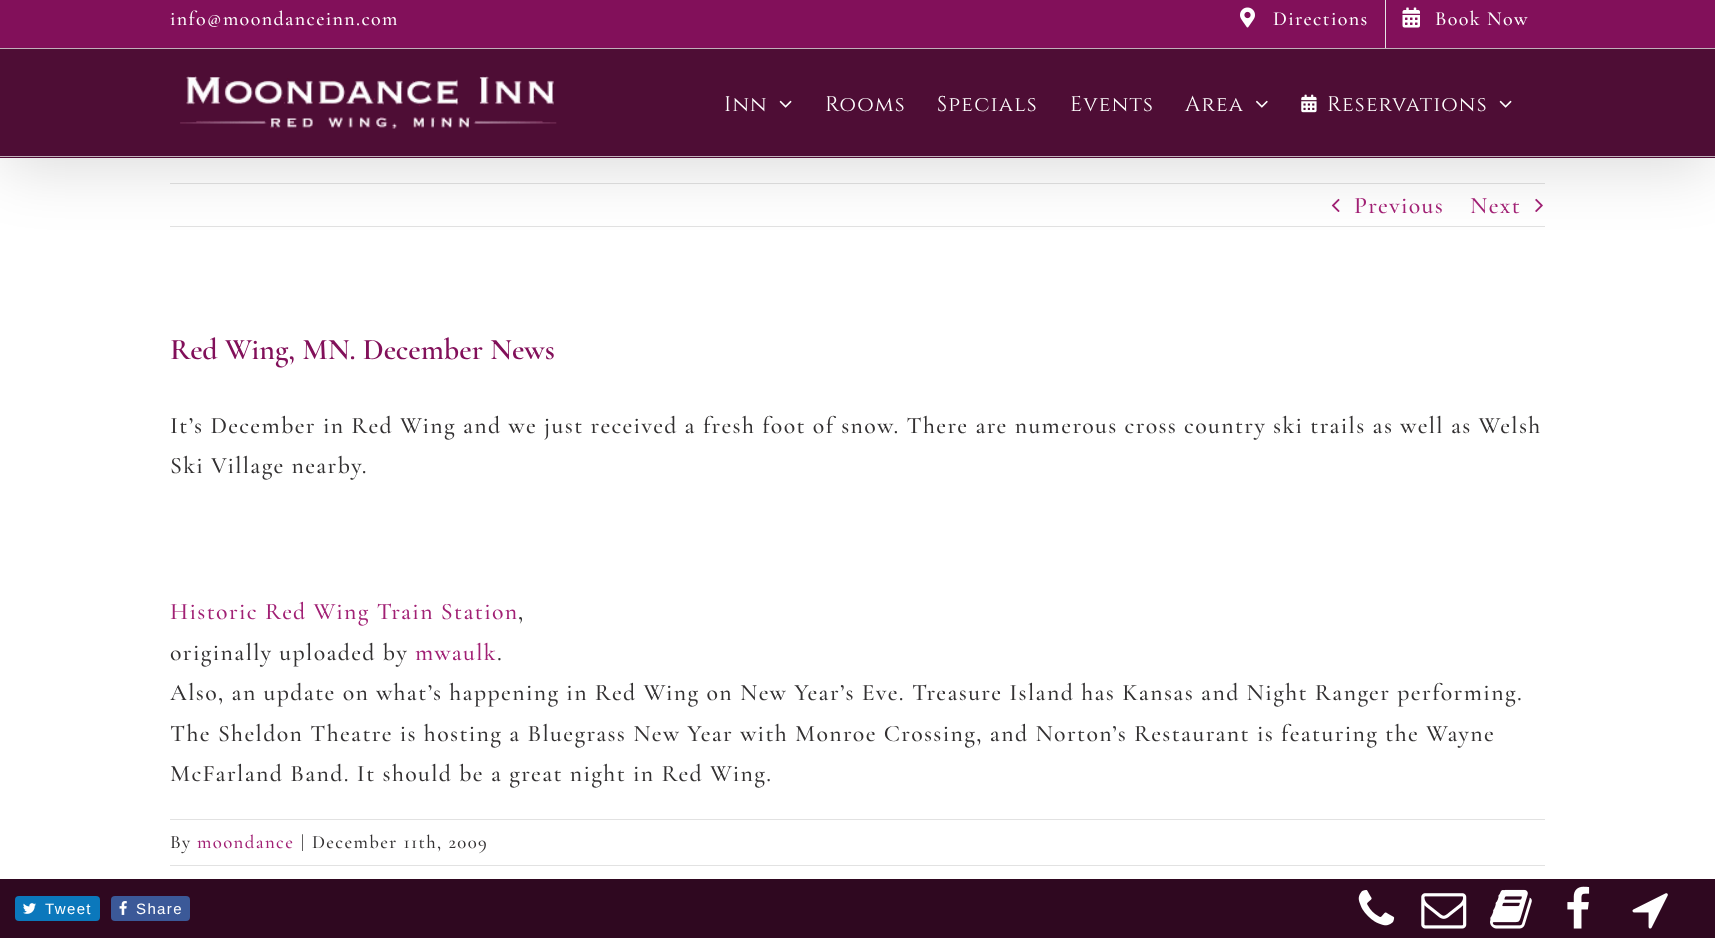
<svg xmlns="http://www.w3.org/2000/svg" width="1715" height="938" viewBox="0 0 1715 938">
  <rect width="100%" height="100%" fill="#fff"/>
  <path d="M170 183h1375v1H170z" fill="#e2e2e2"/>
  <path d="M170 226h1375v1H170z" fill="#e2e2e2"/>
  <image x="1331" y="198" width="9" height="14" href="img/7.png"/>
  <image x="1535" y="198" width="8" height="14" href="img/8.png"/>
  <path d="M3 6h1710v162H3z" fill="#00000024" filter="blur(31px)"/>
  <path d="M0 0h1715v48H0z" fill="#82105a"/>
  <path d="M0 48h1715v1H0z" fill="#c1b0bb"/>
  <image x="1240" y="7" width="15" height="21" href="img/1.png"/>
  <path d="M1385 0h1v48H1385z" fill="#e5e5e5"/>
  <image x="1402" y="7" width="18" height="21" href="img/2.png"/>
  <path d="M0 49h1715v109H0z" fill="#4e0d35"/>
  <path d="M0 156h1715v1H0z" fill="#c1b0bb"/>
  <image x="180" y="76" width="377" height="53" href="img/3.png"/>
  <image x="779" y="100" width="13" height="8" href="img/4.png"/>
  <image x="1256" y="100" width="12" height="8" href="img/5.png"/>
  <image x="1301" y="94" width="16" height="19" href="img/6.png"/>
  <image x="1499" y="100" width="13" height="8" href="img/4.png"/>
  <path d="M170 819h1375v1H170z" fill="#e2e2e2"/>
  <path d="M170 865h1375v1H170z" fill="#e2e2e2"/>
  <path d="M0 879h1715v59H0z" fill="#2f0820"/>
  <rect x="15" y="896" width="85" height="25" rx="4" fill="#0b78bc"/>
  <image x="23" y="903" width="13" height="11" href="img/9.png"/>
  <rect x="111" y="896" width="79" height="25" rx="4" fill="#3b5998"/>
  <image x="119" y="901" width="8" height="14" href="img/10.png"/>
  <image x="1358" y="890" width="37" height="36" href="img/11.png"/>
  <image x="1421" y="893" width="46" height="36" href="img/12.png"/>
  <image x="1490" y="889" width="42" height="40" href="img/13.png"/>
  <image x="1567" y="886" width="23" height="43" href="img/14.png"/>
  <image x="1632" y="893" width="36" height="36" href="img/15.png"/>
  <g font-family="Cormorant Garamond" font-size="20" font-weight="500" letter-spacing="1.38" fill="#fff">
    <text x="170" y="25">info@moondanceinn.com</text>
    <text x="1273" y="25">Directions</text>
    <text x="1435" y="25">Book Now</text>
  </g>
  <g font-family="Cinzel" font-size="21.25" letter-spacing="1.25" fill="#fff">
    <text x="724" y="111">Inn</text>
    <text x="825" y="111">Rooms</text>
    <text x="937" y="111">Specials</text>
    <text x="1070" y="111">Events</text>
    <text x="1185" y="111">Area</text>
    <text x="1327" y="111">Reservations</text>
  </g>
  <g font-family="Cormorant Garamond" font-size="23.75" font-weight="500" letter-spacing="1.38" fill="#a12074">
    <text x="1354" y="213">Previous</text>
    <text x="1470" y="213">Next</text>
  </g>
  <text x="170" y="359" font-family="Cormorant Garamond" font-size="30" font-weight="600" fill="#82105a">Red Wing, MN. December News</text>
  <g font-family="Cormorant Garamond" font-size="23.75" font-weight="500" letter-spacing="1.38" fill="#333132">
    <text x="170" y="433">It’s December in Red Wing and we just received a fresh foot of snow. There are numerous cross country ski trails as well as Welsh</text>
    <text x="170" y="473">Ski Village nearby.</text>
  </g>
  <text x="170" y="619" font-family="Cormorant Garamond" font-size="23.75" font-weight="500" letter-spacing="1.38" fill="#a12074">Historic Red Wing Train Station</text>
  <g font-family="Cormorant Garamond" font-size="23.75" font-weight="500" letter-spacing="1.38" fill="#333132">
    <text x="518" y="619">,</text>
    <text x="170" y="660">originally uploaded by</text>
  </g>
  <text x="415" y="660" font-family="Cormorant Garamond" font-size="23.75" font-weight="500" letter-spacing="1.38" fill="#a12074">mwaulk</text>
  <g font-family="Cormorant Garamond" font-size="23.75" font-weight="500" letter-spacing="1.38" fill="#333132">
    <text x="497" y="660">.</text>
    <text x="170" y="700">Also, an update on what’s happening in Red Wing on New Year’s Eve. Treasure Island has Kansas and Night Ranger performing.</text>
    <text x="170" y="741">The Sheldon Theatre is hosting a Bluegrass New Year with Monroe Crossing, and Norton’s Restaurant is featuring the Wayne</text>
    <text x="170" y="781">McFarland Band. It should be a great night in Red Wing.</text>
  </g>
  <text x="170" y="848" font-family="Cormorant Garamond" font-size="18.75" font-weight="500" letter-spacing="1.38" fill="#333132">By</text>
  <text x="197" y="848" font-family="Cormorant Garamond" font-size="18.75" font-weight="500" letter-spacing="1.38" fill="#a12074">moondance</text>
  <g font-family="Cormorant Garamond" font-size="18.75" font-weight="500" letter-spacing="1.38" fill="#333132">
    <text x="301" y="848">|</text>
    <text x="312" y="848">December 11th, 2009</text>
  </g>
  <g font-family="Liberation Sans" font-size="15" letter-spacing="1.38" fill="#fff">
    <text x="45" y="914">Tweet</text>
    <text x="136" y="914">Share</text>
  </g>
</svg>
